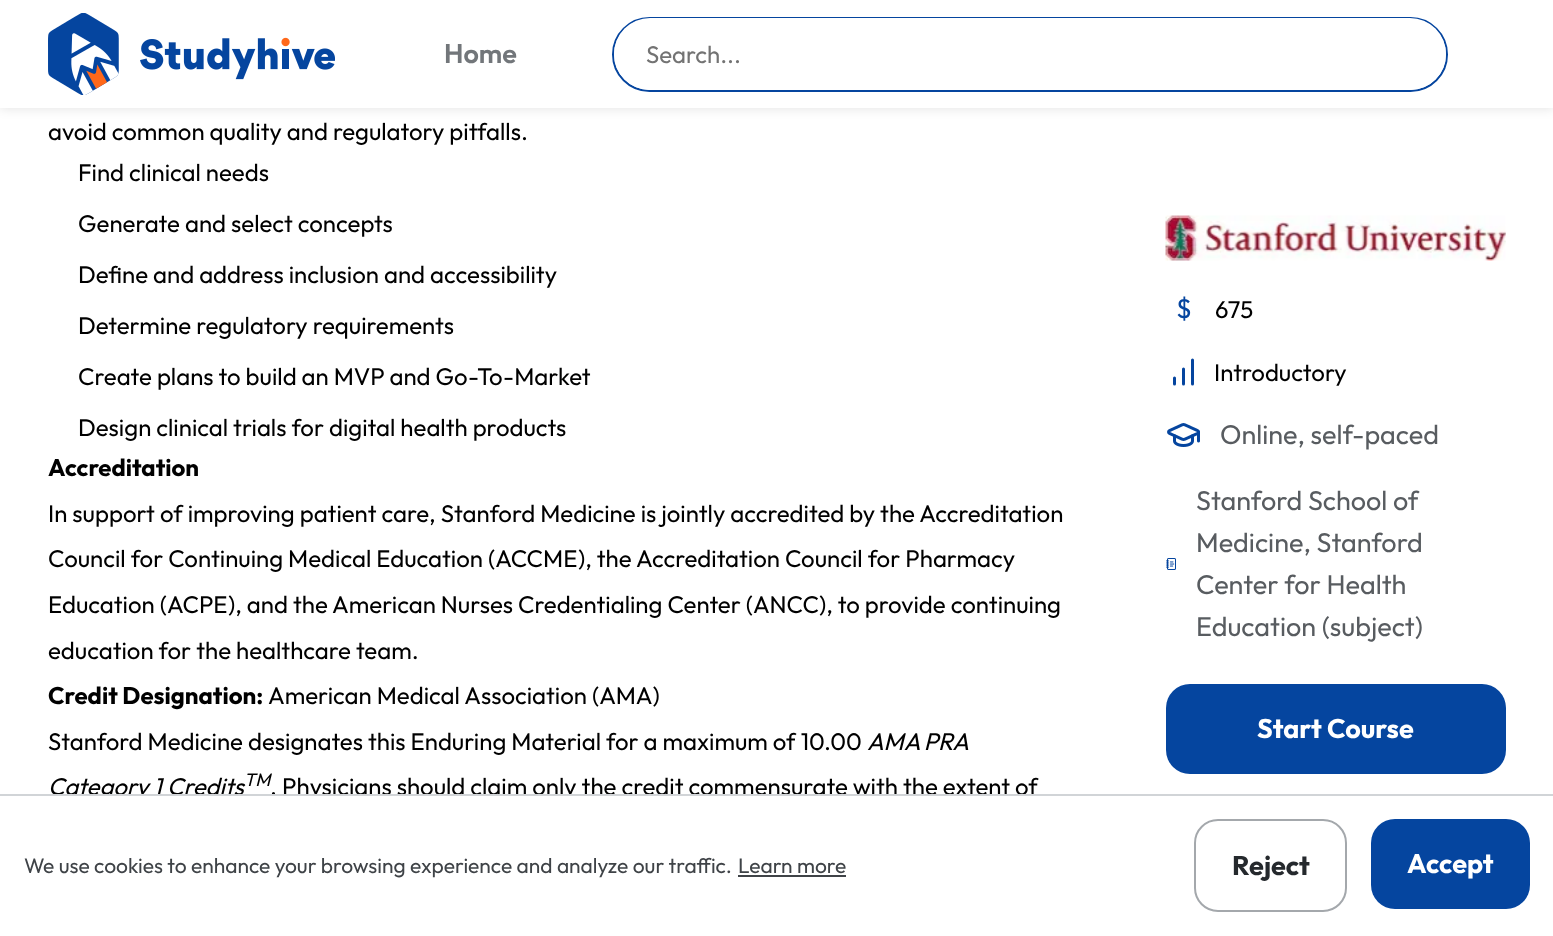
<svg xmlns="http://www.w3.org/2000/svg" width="1553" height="936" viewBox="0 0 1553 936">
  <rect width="100%" height="100%" fill="#fff"/>
  <path d="M0 0h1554v108H0z" fill="#0000001f" filter="blur(6px)"/>
  <path d="M0 0h1553v108H0z" fill="#fff"/>
  <image x="48" y="13" width="287" height="82" href="img/1.png"/>
  <rect x="613" y="18" width="834" height="73" rx="36.5" fill="none" stroke="#05459f" stroke-width="2"/>
  <rect x="614" y="18" width="832" height="72" rx="36" fill="#fff"/>
  <image x="1165" y="215" width="341" height="46" href="img/2.png"/>
  <path d="M1183.5 384V369M1192.5 384V360M1174.5 384V378" fill="none" stroke="#05459f" stroke-width="3" stroke-linecap="round" stroke-linejoin="round"/>
  <image x="1167" y="423" width="33" height="24" href="img/3.png"/>
  <image x="1166" y="558" width="10" height="12" href="img/4.png"/>
  <rect x="1166" y="684" width="340" height="90" rx="24" fill="#05459f"/>
  <path d="M738 875h108v2H738z" fill="#3f4347"/>
  <rect x="1195" y="820" width="151" height="91" rx="23" fill="none" stroke="#a4a8ac" stroke-width="2"/>
  <rect x="1371" y="819" width="159" height="90" rx="24" fill="#05459f"/>
  <text x="444" y="63" font-family="Outfit" font-size="27" font-weight="600" fill="#72767a">Home</text>
  <text x="646" y="63" font-family="Outfit" font-size="24" fill="#737373">Search...</text>
  <g font-family="Outfit" font-size="24" fill="#000">
    <text x="48" y="140">avoid common quality and regulatory pitfalls.</text>
    <text x="78" y="181">Find clinical needs</text>
    <text x="78" y="232">Generate and select concepts</text>
    <text x="78" y="283">Define and address inclusion and accessibility</text>
    <text x="78" y="334">Determine regulatory requirements</text>
    <text x="78" y="385">Create plans to build an MVP and Go-To-Market</text>
    <text x="78" y="436">Design clinical trials for digital health products</text>
  </g>
  <text x="48" y="476" font-family="Outfit" font-size="24" font-weight="bold" fill="#000">Accreditation</text>
  <g font-family="Outfit" font-size="24" fill="#000">
    <text x="48" y="522">In support of improving patient care, Stanford Medicine is jointly accredited by the Accreditation</text>
    <text x="48" y="567">Council for Continuing Medical Education (ACCME), the Accreditation Council for Pharmacy</text>
    <text x="48" y="613">Education (ACPE), and the American Nurses Credentialing Center (ANCC), to provide continuing</text>
    <text x="48" y="659">education for the healthcare team.</text>
  </g>
  <text x="48" y="704" font-family="Outfit" font-size="24" font-weight="bold" fill="#000">Credit Designation:</text>
  <g font-family="Outfit" font-size="24" fill="#000">
    <text x="268" y="704">American Medical Association (AMA)</text>
    <text x="48" y="750">Stanford Medicine designates this Enduring Material for a maximum of 10.00</text>
  </g>
  <g font-family="Outfit" font-size="24" font-style="italic" fill="#000">
    <text x="867" y="750" word-spacing="-1">AMA PRA</text>
    <text x="48" y="795">Category 1 Credits</text>
  </g>
  <text x="244" y="786" font-family="Outfit" font-size="18" font-style="italic" fill="#000">TM</text>
  <text x="270" y="795" font-family="Outfit" font-size="24" fill="#000">. Physicians should claim only the credit commensurate with the extent of</text>
  <text x="1176" y="318" font-family="Outfit" font-size="27" fill="#05459f">$</text>
  <g font-family="Outfit" font-size="24" fill="#000">
    <text x="1215" y="318">675</text>
    <text x="1214" y="381">Introductory</text>
  </g>
  <g font-family="Outfit" font-size="27" fill="#585c60">
    <text x="1220" y="444">Online, self-paced</text>
    <text x="1196" y="510">Stanford School of</text>
    <text x="1196" y="552">Medicine, Stanford</text>
    <text x="1196" y="594">Center for Health</text>
    <text x="1196" y="636">Education (subject)</text>
  </g>
  <text x="1257" y="738" font-family="Outfit" font-size="27" font-weight="bold" fill="#fff">Start Course</text>
  <path d="M99 796h472v4H99z" fill="#fff"/>
  <path d="M0 794h1553v2H0z" fill="#d1d4d7"/>
  <g font-family="Outfit" font-size="21" fill="#3f4347">
    <text x="24" y="873">We use cookies to enhance your browsing experience and analyze our traffic.</text>
    <text x="738" y="873">Learn more</text>
  </g>
  <text x="1232" y="875" font-family="Outfit" font-size="27" font-weight="bold" fill="#25292d">Reject</text>
  <text x="1407" y="873" font-family="Outfit" font-size="27" font-weight="bold" fill="#fff">Accept</text>
</svg>
